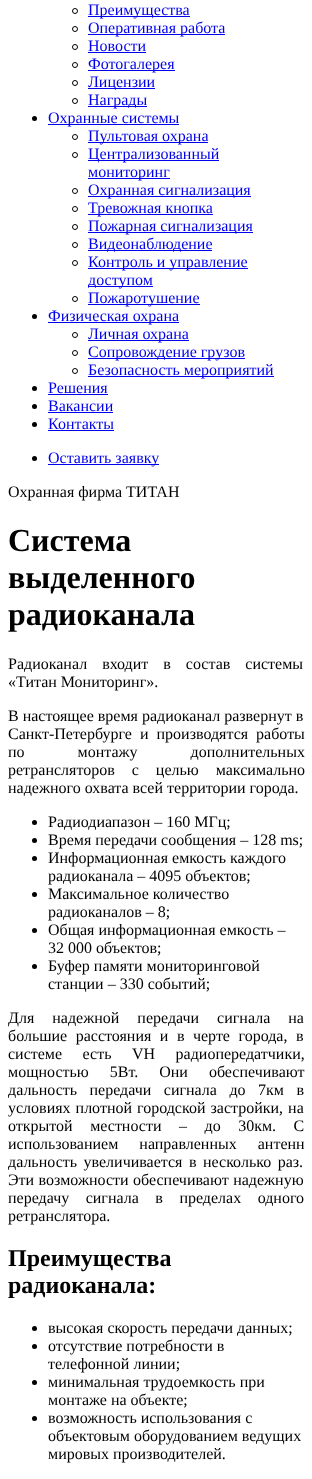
<svg xmlns="http://www.w3.org/2000/svg" width="312" height="1479" viewBox="0 0 312 1479">
  <rect width="100%" height="100%" fill="#fff"/>
  <circle cx="75" cy="11" r="2.5" fill="none" stroke="#000"/>
  <path d="M88 16h102v1H88z" fill="#00e"/>
  <circle cx="75" cy="29" r="2.5" fill="none" stroke="#000"/>
  <path d="M88 34h137v1H88z" fill="#00e"/>
  <circle cx="75" cy="47" r="2.5" fill="none" stroke="#000"/>
  <path d="M88 52h58v1H88z" fill="#00e"/>
  <circle cx="75" cy="65" r="2.5" fill="none" stroke="#000"/>
  <path d="M88 70h87v1H88z" fill="#00e"/>
  <circle cx="75" cy="83" r="2.5" fill="none" stroke="#000"/>
  <path d="M88 88h67v1H88z" fill="#00e"/>
  <circle cx="75" cy="101" r="2.5" fill="none" stroke="#000"/>
  <path d="M88 106h59v1H88z" fill="#00e"/>
  <circle cx="34.5" cy="118.5" r="2.5" fill="#000"/>
  <path d="M48 124h131v1H48z" fill="#00e"/>
  <circle cx="75" cy="137" r="2.5" fill="none" stroke="#000"/>
  <path d="M88 142h120v1H88z" fill="#00e"/>
  <circle cx="75" cy="155" r="2.5" fill="none" stroke="#000"/>
  <path d="M88 160h131v1H88z" fill="#00e"/>
  <path d="M88 178h82v1H88z" fill="#00e"/>
  <circle cx="75" cy="191" r="2.5" fill="none" stroke="#000"/>
  <path d="M88 196h163v1H88z" fill="#00e"/>
  <circle cx="75" cy="209" r="2.5" fill="none" stroke="#000"/>
  <path d="M88 214h125v1H88z" fill="#00e"/>
  <circle cx="75" cy="227" r="2.5" fill="none" stroke="#000"/>
  <path d="M88 232h165v1H88z" fill="#00e"/>
  <circle cx="75" cy="245" r="2.5" fill="none" stroke="#000"/>
  <path d="M88 250h124v1H88z" fill="#00e"/>
  <circle cx="75" cy="263" r="2.5" fill="none" stroke="#000"/>
  <path d="M88 268h160v1H88z" fill="#00e"/>
  <path d="M88 286h65v1H88z" fill="#00e"/>
  <circle cx="75" cy="299" r="2.5" fill="none" stroke="#000"/>
  <path d="M88 304h112v1H88z" fill="#00e"/>
  <circle cx="34.5" cy="316.5" r="2.5" fill="#000"/>
  <path d="M48 322h131v1H48z" fill="#00e"/>
  <circle cx="75" cy="335" r="2.5" fill="none" stroke="#000"/>
  <path d="M88 340h101v1H88z" fill="#00e"/>
  <circle cx="75" cy="353" r="2.5" fill="none" stroke="#000"/>
  <path d="M88 358h157v1H88z" fill="#00e"/>
  <circle cx="75" cy="371" r="2.5" fill="none" stroke="#000"/>
  <path d="M88 376h186v1H88z" fill="#00e"/>
  <circle cx="34.5" cy="388.5" r="2.5" fill="#000"/>
  <path d="M48 394h60v1H48z" fill="#00e"/>
  <circle cx="34.5" cy="406.5" r="2.5" fill="#000"/>
  <path d="M48 412h65v1H48z" fill="#00e"/>
  <circle cx="34.5" cy="424.5" r="2.5" fill="#000"/>
  <path d="M48 430h66v1H48z" fill="#00e"/>
  <circle cx="34.5" cy="458.5" r="2.5" fill="#000"/>
  <path d="M48 464h111v1H48z" fill="#00e"/>
  <circle cx="34.5" cy="822.5" r="2.5" fill="#000"/>
  <circle cx="34.5" cy="840.5" r="2.5" fill="#000"/>
  <circle cx="34.5" cy="858.5" r="2.5" fill="#000"/>
  <circle cx="34.5" cy="894.5" r="2.5" fill="#000"/>
  <circle cx="34.5" cy="930.5" r="2.5" fill="#000"/>
  <circle cx="34.5" cy="966.5" r="2.5" fill="#000"/>
  <circle cx="34.5" cy="1328.5" r="2.5" fill="#000"/>
  <circle cx="34.5" cy="1346.5" r="2.5" fill="#000"/>
  <circle cx="34.5" cy="1382.5" r="2.5" fill="#000"/>
  <circle cx="34.5" cy="1418.5" r="2.5" fill="#000"/>
  <g font-family="Liberation Serif" font-size="16" fill="#00e">
    <text x="88" y="15">Преимущества</text>
    <text x="88" y="33">Оперативная работа</text>
    <text x="88" y="51">Новости</text>
    <text x="88" y="69">Фотогалерея</text>
    <text x="88" y="87">Лицензии</text>
    <text x="88" y="105">Награды</text>
    <text x="48" y="123">Охранные системы</text>
    <text x="88" y="141">Пультовая охрана</text>
    <text x="88" y="159">Централизованный</text>
    <text x="88" y="177">мониторинг</text>
    <text x="88" y="195">Охранная сигнализация</text>
    <text x="88" y="213">Тревожная кнопка</text>
    <text x="88" y="231">Пожарная сигнализация</text>
    <text x="88" y="249">Видеонаблюдение</text>
    <text x="88" y="267">Контроль и управление</text>
    <text x="88" y="285">доступом</text>
    <text x="88" y="303">Пожаротушение</text>
    <text x="48" y="321">Физическая охрана</text>
    <text x="88" y="339">Личная охрана</text>
    <text x="88" y="357">Сопровождение грузов</text>
    <text x="88" y="375">Безопасность мероприятий</text>
    <text x="48" y="393">Решения</text>
    <text x="48" y="411">Вакансии</text>
    <text x="48" y="429">Контакты</text>
    <text x="48" y="463">Оставить заявку</text>
  </g>
  <text x="8" y="497" font-family="Liberation Serif" font-size="16" fill="#000">Охранная фирма ТИТАН</text>
  <g font-family="Liberation Serif" font-size="32" font-weight="bold" fill="#000">
    <text x="8" y="551">Система</text>
    <text x="8" y="588">выделенного</text>
    <text x="8" y="625">радиоканала</text>
  </g>
  <g font-family="Liberation Serif" font-size="16" fill="#000">
    <text x="8" y="669" word-spacing="11">Радиоканал входит в состав системы</text>
    <text x="8" y="687">«Титан Мониторинг».</text>
    <text x="8" y="721">В настоящее время радиоканал развернут в</text>
    <text x="8" y="739" word-spacing="4">Санкт-Петербурге и производятся работы</text>
    <text x="8" y="757" word-spacing="49">по монтажу дополнительных</text>
    <text x="8" y="775" word-spacing="13">ретрансляторов с целью максимально</text>
    <text x="8" y="793">надежного охвата всей территории города.</text>
    <text x="48" y="827">Радиодиапазон – 160 МГц;</text>
    <text x="48" y="845">Время передачи сообщения – 128 ms;</text>
    <text x="48" y="863">Информационная емкость каждого</text>
    <text x="48" y="881">радиоканала – 4095 объектов;</text>
    <text x="48" y="899">Максимальное количество</text>
    <text x="48" y="917">радиоканалов – 8;</text>
    <text x="48" y="935">Общая информационная емкость –</text>
    <text x="48" y="953">32 000 объектов;</text>
    <text x="48" y="971">Буфер памяти мониторинговой</text>
    <text x="48" y="989">станции – 330 событий;</text>
    <text x="8" y="1023" word-spacing="14">Для надежной передачи сигнала на</text>
    <text x="8" y="1041" word-spacing="4.5">большие расстояния и в черте города, в</text>
    <text x="8" y="1059" word-spacing="16.5">системе есть VH радиопередатчики,</text>
    <text x="8" y="1077" word-spacing="17">мощностью 5Вт. Они обеспечивают</text>
    <text x="8" y="1095" word-spacing="8.5">дальность передачи сигнала до 7км в</text>
    <text x="8" y="1113" word-spacing="1">условиях плотной городской застройки, на</text>
    <text x="8" y="1131" word-spacing="13.5">открытой местности – до 30км. С</text>
    <text x="8" y="1149" word-spacing="17">использованием направленных антенн</text>
    <text x="8" y="1167" word-spacing="2.5">дальность увеличивается в несколько раз.</text>
    <text x="8" y="1185" word-spacing="0.5">Эти возможности обеспечивают надежную</text>
    <text x="8" y="1203" word-spacing="12.5">передачу сигнала в пределах одного</text>
    <text x="8" y="1221">ретранслятора.</text>
  </g>
  <g font-family="Liberation Serif" font-size="24" font-weight="bold" fill="#000">
    <text x="8" y="1266">Преимущества</text>
    <text x="8" y="1293">радиоканала:</text>
  </g>
  <g font-family="Liberation Serif" font-size="16" fill="#000">
    <text x="48" y="1333">высокая скорость передачи данных;</text>
    <text x="48" y="1351">отсутствие потребности в</text>
    <text x="48" y="1369">телефонной линии;</text>
    <text x="48" y="1387">минимальная трудоемкость при</text>
    <text x="48" y="1405">монтаже на объекте;</text>
    <text x="48" y="1423">возможность использования с</text>
    <text x="48" y="1441">объектовым оборудованием ведущих</text>
    <text x="48" y="1459">мировых производителей.</text>
  </g>
</svg>
